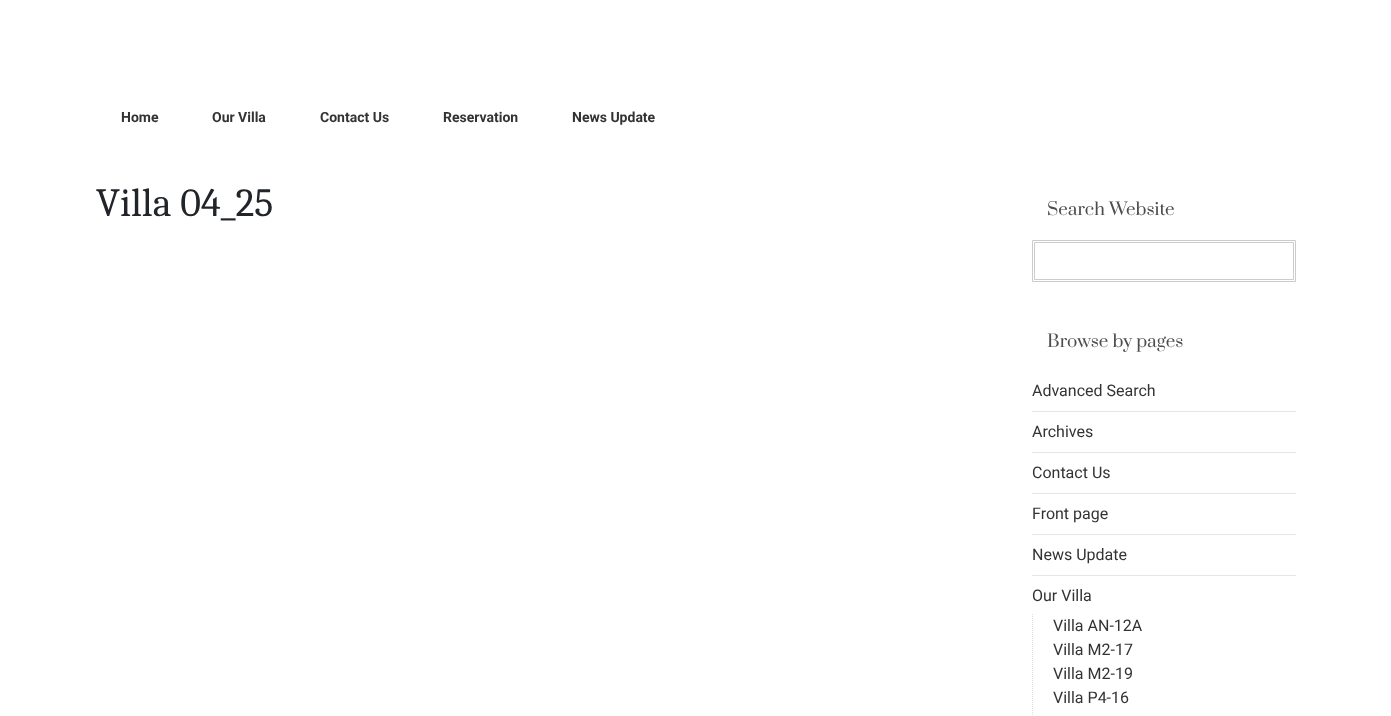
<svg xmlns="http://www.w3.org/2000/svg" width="1391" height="716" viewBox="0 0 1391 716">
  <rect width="100%" height="100%" fill="#fff"/>
  <path d="M1032.5 240.5h263v41H1032.5z" fill="none" stroke="#ccc"/>
  <path d="M1034.5 242.5h259v37H1034.5z" fill="none" stroke="#ccc"/>
  <path d="M1032 411h264v1H1032z" fill="#e6e6e6"/>
  <path d="M1032 452h264v1H1032z" fill="#e6e6e6"/>
  <path d="M1032 493h264v1H1032z" fill="#e6e6e6"/>
  <path d="M1032 534h264v1H1032z" fill="#e6e6e6"/>
  <path d="M1032 575h264v1H1032z" fill="#e6e6e6"/>
  <path d="M1032.5 614V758" fill="none" stroke="#ddd" stroke-dasharray="1 1"/>
  <g font-family="Roboto" font-size="14" font-weight="bold" fill="#333">
    <text x="121" y="122">Home</text>
    <text x="212" y="122">Our Villa</text>
    <text x="320" y="122">Contact Us</text>
    <text x="443" y="122">Reservation</text>
    <text x="572" y="122">News Update</text>
  </g>
  <text x="96" y="216" font-family="Caladea" font-size="40" fill="#212529">Villa 04_25</text>
  <g font-family="Prata" font-size="17" fill="#4d4d4d">
    <text x="1047" y="215">Search Website</text>
    <text x="1047" y="347">Browse by pages</text>
  </g>
  <g font-family="Roboto" font-size="16" fill="#333">
    <text x="1032" y="396">Advanced Search</text>
    <text x="1032" y="437">Archives</text>
    <text x="1032" y="478">Contact Us</text>
    <text x="1032" y="519">Front page</text>
    <text x="1032" y="560">News Update</text>
    <text x="1032" y="601">Our Villa</text>
    <text x="1053" y="631">Villa AN-12A</text>
    <text x="1053" y="655">Villa M2-17</text>
    <text x="1053" y="679">Villa M2-19</text>
    <text x="1053" y="703">Villa P4-16</text>
  </g>
</svg>
